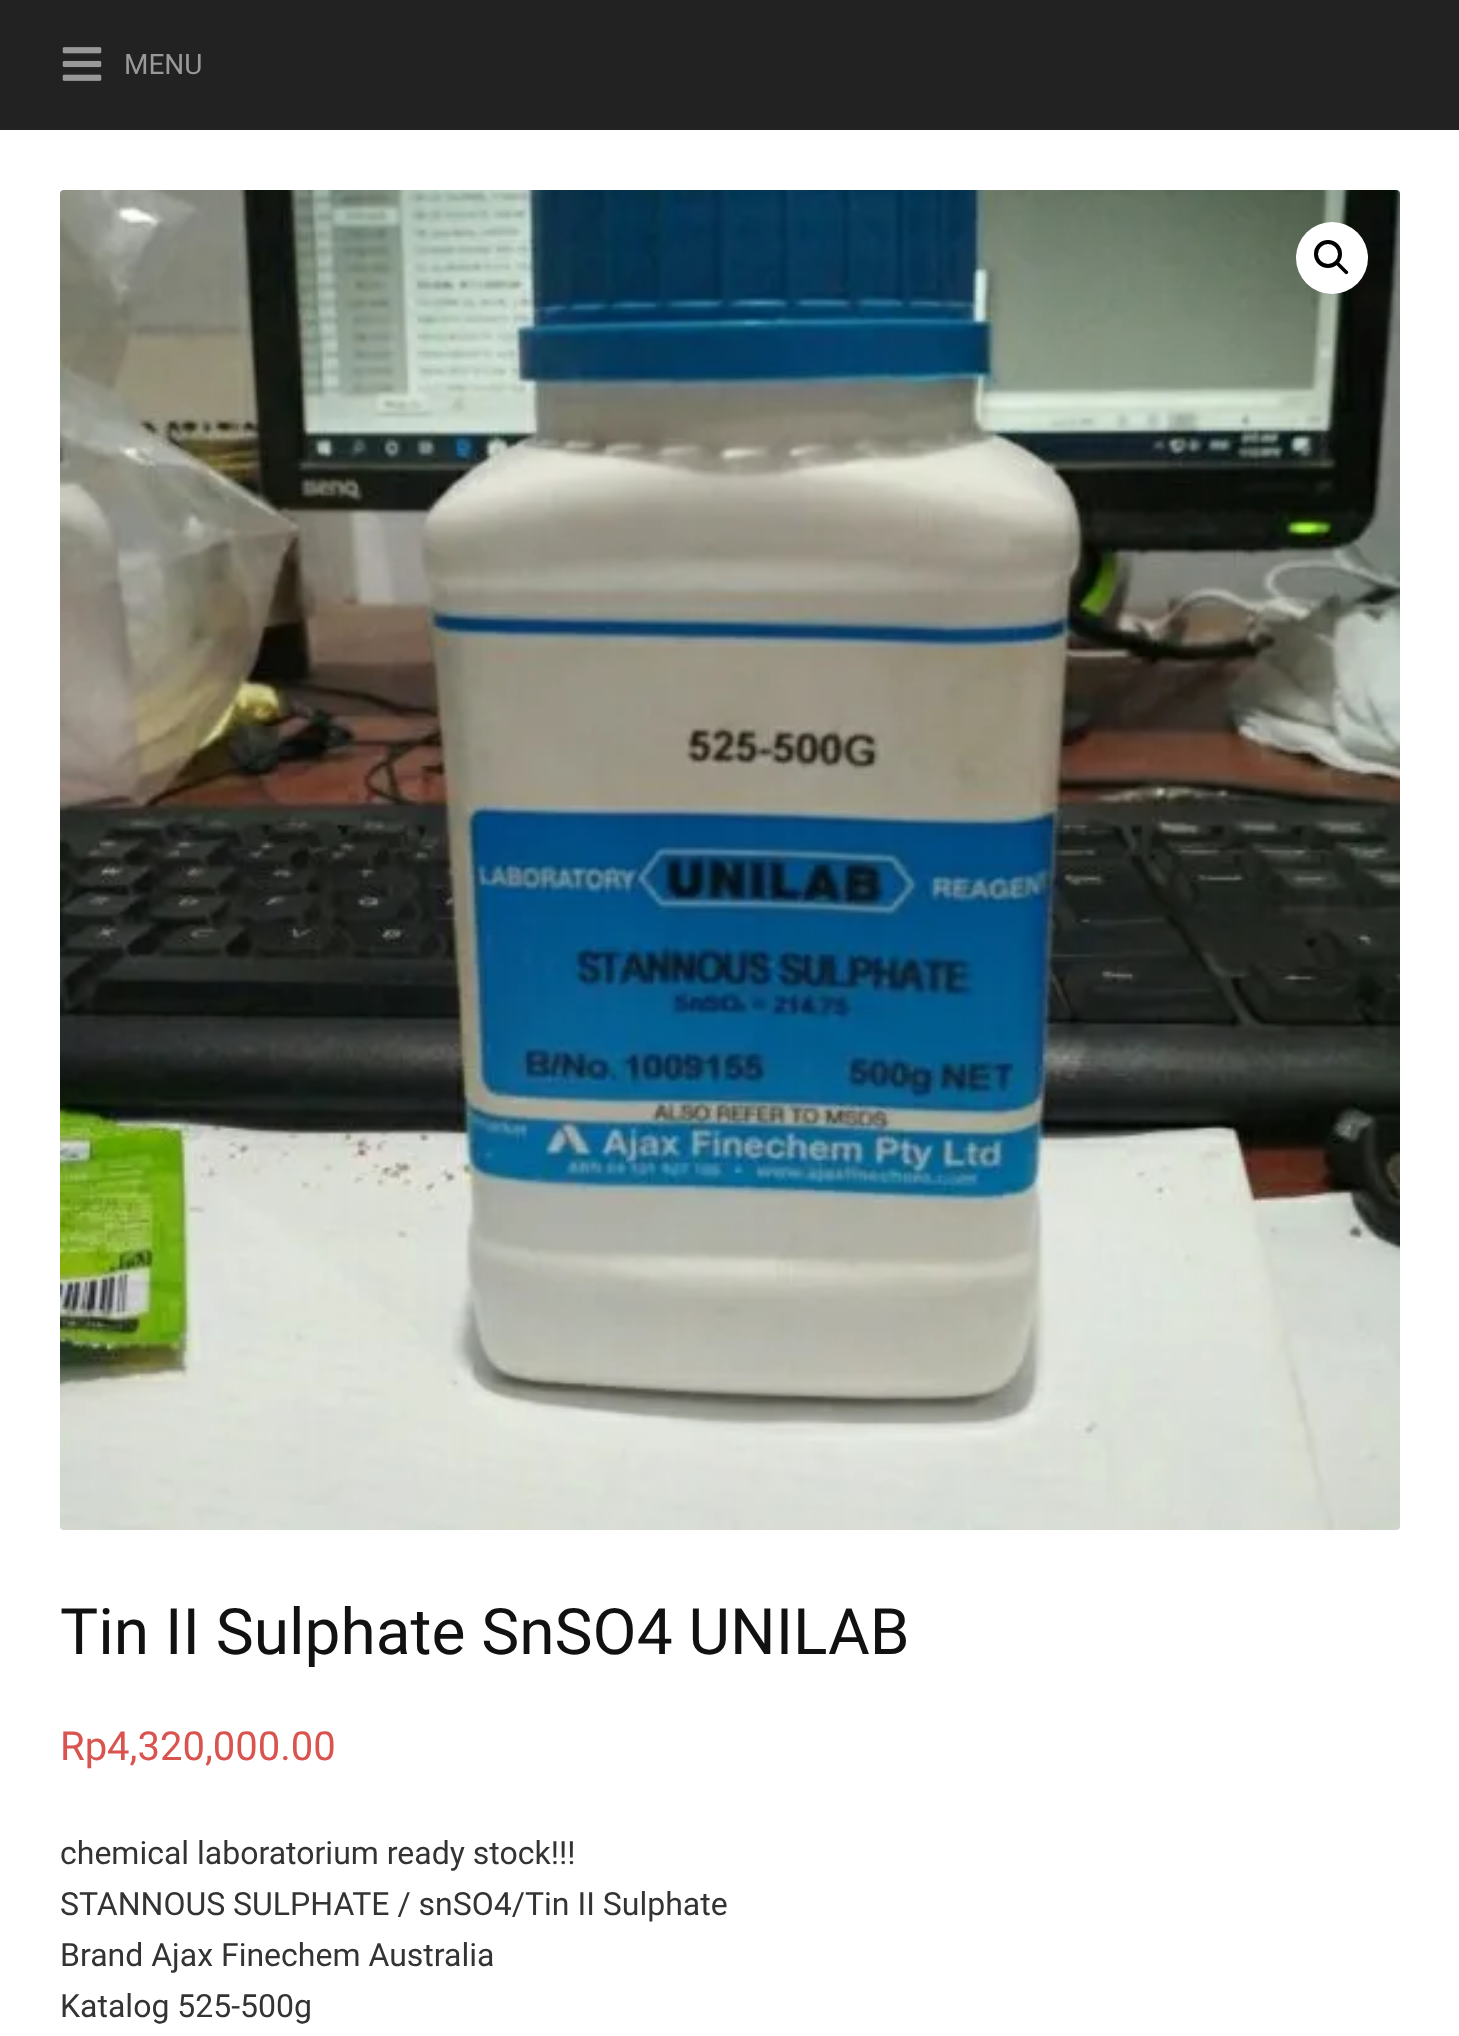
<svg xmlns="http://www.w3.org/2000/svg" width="1459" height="2036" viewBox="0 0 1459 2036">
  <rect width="100%" height="100%" fill="#fff"/>
  <path d="M0 0h1459v130H0z" fill="#222"/>
  <image x="62" y="47" width="40" height="34" href="img/1.png"/>
  <image x="60" y="190" width="1340" height="1340" href="img/2.png"/>
  <circle cx="1332" cy="258" r="36" fill="#fff"/>
  <circle cx="1328" cy="254" r="12" fill="none" stroke="#000" stroke-width="4"/>
  <path d="M1336.5 262.5C1337 261.5 1338.5 261.5 1339 262.5L1347.5 271C1348.5 271.5 1348.5 273 1347.5 273.5C1347 274.5 1345.5 274.5 1345 273.5L1336.5 265C1335.5 264.5 1335.5 263 1336.5 262.5Z" fill="#000"/>
  <text x="124" y="74" font-family="Roboto" font-size="28" fill="#999">MENU</text>
  <text x="60" y="1654" font-family="Roboto" font-size="64" fill="#111">Tin II Sulphate SnSO4 UNILAB</text>
  <text x="60" y="1760" font-family="Roboto" font-size="40" fill="#d9534f">Rp4,320,000.00</text>
  <g font-family="Roboto" font-size="32" fill="#333">
    <text x="60" y="1864">chemical laboratorium ready stock!!!</text>
    <text x="60" y="1915">STANNOUS SULPHATE / snSO4/Tin II Sulphate</text>
    <text x="60" y="1966">Brand Ajax Finechem Australia</text>
    <text x="60" y="2017">Katalog 525-500g</text>
  </g>
</svg>
